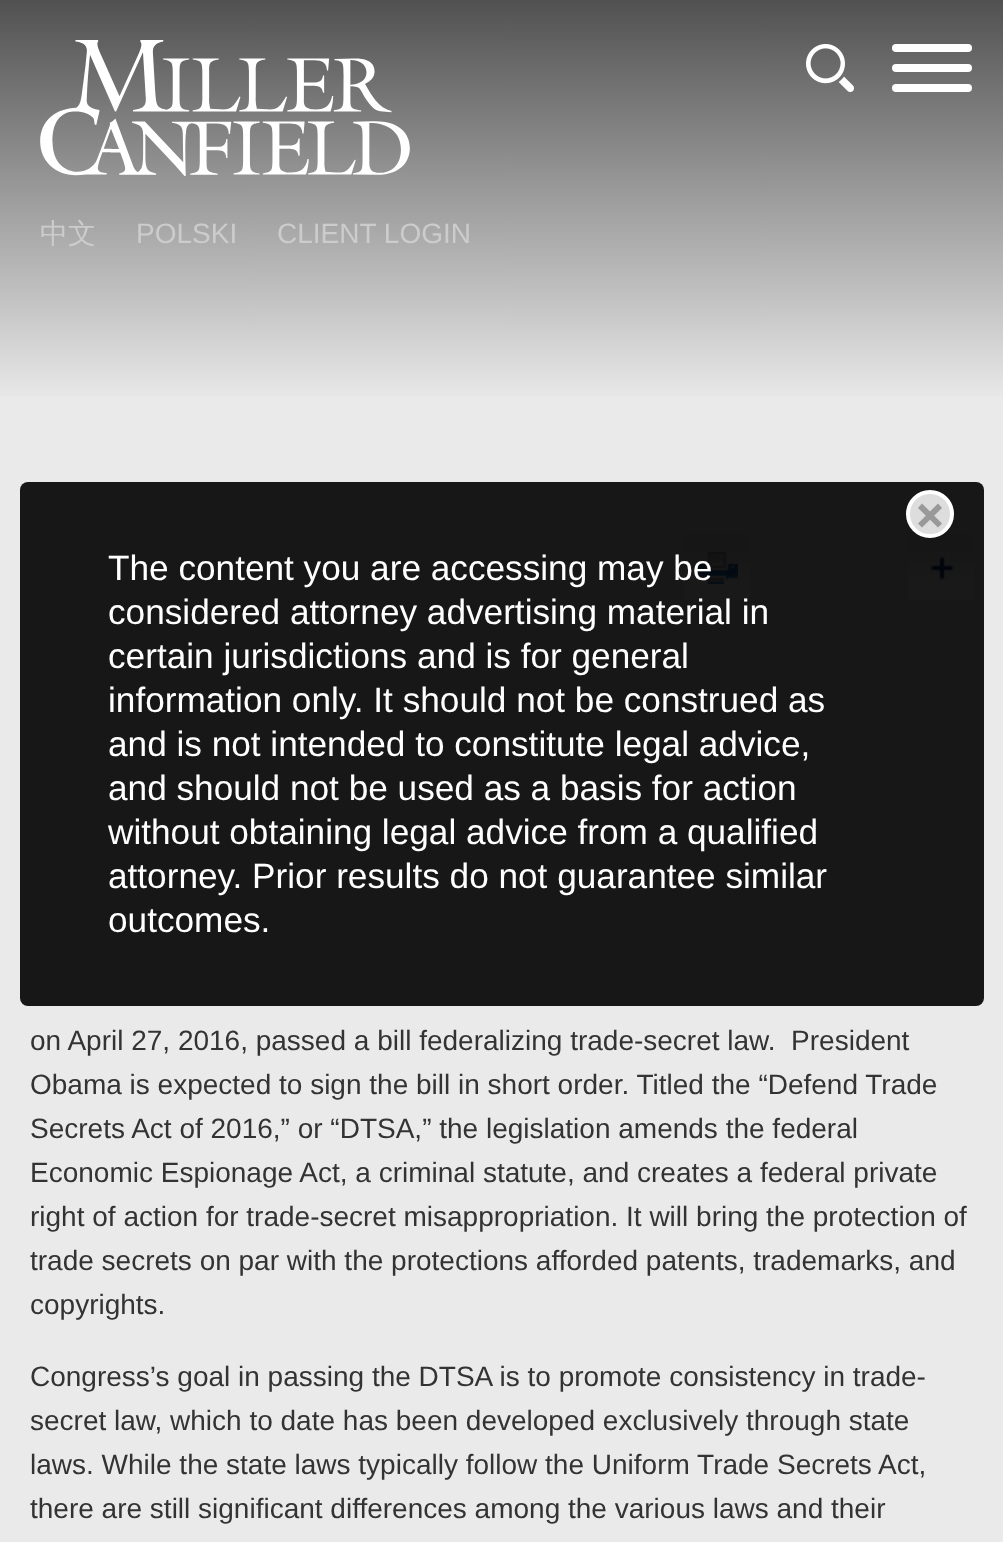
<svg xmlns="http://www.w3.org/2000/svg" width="1003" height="1542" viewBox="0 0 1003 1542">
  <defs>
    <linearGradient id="g1" gradientUnits="userSpaceOnUse" x1="502" y1="0" x2="502" y2="400"><stop offset="0" stop-color="#515151"/><stop offset="1" stop-color="#e9e9e9"/></linearGradient>
  </defs>
  <rect width="100%" height="100%" fill="#eaeaea"/>
  <path d="M0 0h1003v396H0z" fill="url(#g1)"/>
  <image x="40" y="40" width="370" height="136" href="img/1.png"/>
  <image x="806" y="44" width="48" height="48" href="img/2.png"/>
  <rect x="892" y="44" width="80" height="8" rx="4" fill="#fff"/>
  <rect x="892" y="64" width="80" height="8" rx="4" fill="#fff"/>
  <rect x="892" y="84" width="80" height="8" rx="4" fill="#fff"/>
  <image x="684" y="534" width="66" height="66" href="img/3.png"/>
  <image x="696" y="552" width="42" height="32" href="img/4.png"/>
  <image x="908" y="534" width="66" height="66" href="img/3.png"/>
  <image x="930" y="556" width="24" height="24" href="img/5.png"/>
  <rect x="20" y="482" width="964" height="524" rx="8" fill="#000000e6"/>
  <circle cx="930" cy="514" r="22" fill="#ddd" stroke="#fff" stroke-width="4"/>
  <path d="M918 523.5L938 503.5L942 508L922 527.5Z" fill="#999"/>
  <path d="M922 503.5L942 523.5L938 527.5L918 508Z" fill="#999"/>
  <text x="40" y="243" font-family="WenQuanYi Zen Hei" font-size="28" font-weight="500" fill="#ccc">中文</text>
  <g font-family="Liberation Sans" font-size="28" fill="#ccc">
    <text x="136" y="243">POLSKI</text>
    <text x="277" y="243">CLIENT LOGIN</text>
  </g>
  <g font-family="Liberation Sans" font-size="35.2" fill="#fff">
    <text x="108" y="580">The content you are accessing may be</text>
    <text x="108" y="624">considered attorney advertising material in</text>
    <text x="108" y="668">certain jurisdictions and is for general</text>
    <text x="108" y="712">information only. It should not be construed as</text>
    <text x="108" y="756">and is not intended to constitute legal advice,</text>
    <text x="108" y="800">and should not be used as a basis for action</text>
    <text x="108" y="844">without obtaining legal advice from a qualified</text>
    <text x="108" y="888">attorney. Prior results do not guarantee similar</text>
    <text x="108" y="932">outcomes.</text>
  </g>
  <g font-family="Liberation Sans" font-size="28" fill="#333">
    <text x="30" y="1050" xml:space="preserve">on April 27, 2016, passed a bill federalizing trade-secret law.  President</text>
    <text x="30" y="1094">Obama is expected to sign the bill in short order. Titled the “Defend Trade</text>
    <text x="30" y="1138">Secrets Act of 2016,” or “DTSA,” the legislation amends the federal</text>
    <text x="30" y="1182">Economic Espionage Act, a criminal statute, and creates a federal private</text>
    <text x="30" y="1226">right of action for trade-secret misappropriation. It will bring the protection of</text>
    <text x="30" y="1270">trade secrets on par with the protections afforded patents, trademarks, and</text>
    <text x="30" y="1314">copyrights.</text>
    <text x="30" y="1386">Congress’s goal in passing the DTSA is to promote consistency in trade-</text>
    <text x="30" y="1430">secret law, which to date has been developed exclusively through state</text>
    <text x="30" y="1474">laws. While the state laws typically follow the Uniform Trade Secrets Act,</text>
    <text x="30" y="1518">there are still significant differences among the various laws and their</text>
  </g>
</svg>
